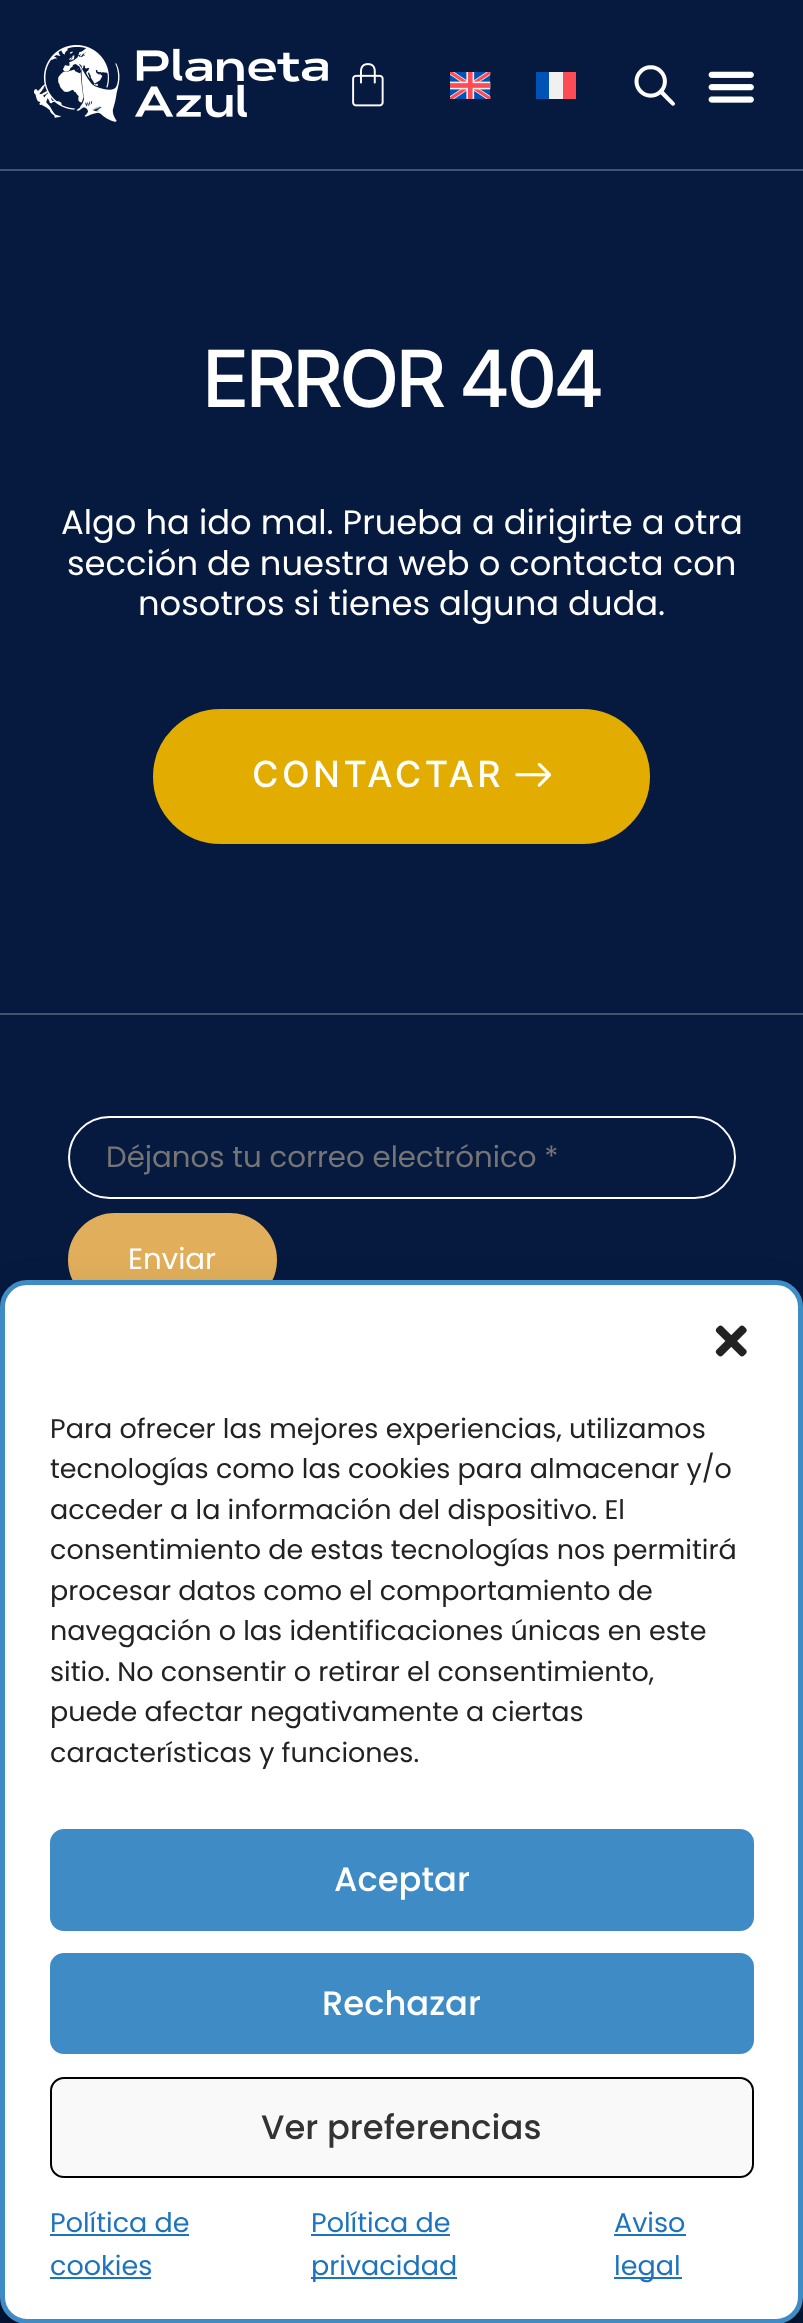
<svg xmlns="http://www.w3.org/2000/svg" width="803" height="2323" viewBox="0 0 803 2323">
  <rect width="100%" height="100%" fill="#06193f"/>
  <path d="M0 169h803v2H0z" fill="#44536f"/>
  <image x="34" y="45" width="294" height="77" href="img/1.png"/>
  <image x="352" y="63" width="32" height="44" href="img/2.png"/>
  <image x="450" y="72" width="41" height="27" href="img/3.png"/>
  <path d="M536 72h13v27H536z" fill="#0052b4"/>
  <path d="M549 72h14v27H549z" fill="#f0f0f0"/>
  <path d="M563 72h13v27H563z" fill="#ff4b55"/>
  <image x="634" y="65" width="41" height="41" href="img/4.png"/>
  <image x="708" y="71" width="46" height="32" href="img/5.png"/>
  <rect x="154" y="710" width="495" height="133" rx="66.5" fill="#e2ad00" stroke="#e2ad00" stroke-width="2"/>
  <image x="515" y="763" width="36" height="24" href="img/6.png"/>
  <path d="M0 1013h803v2H0z" fill="#44536f"/>
  <rect x="69" y="1117" width="666" height="81" rx="40.5" fill="none" stroke="#fff" stroke-width="2"/>
  <rect x="69" y="1214" width="207" height="92" rx="46" fill="#e1af5b" stroke="#e1af5b" stroke-width="2"/>
  <rect y="1294" width="803" height="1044" rx="27" fill="#0000003b" filter="blur(7px)"/>
  <rect y="1303" width="803" height="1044" rx="27" fill="#00000030" filter="blur(22.5px)"/>
  <rect x="2.5" y="1282.5" width="798" height="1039" rx="24.5" fill="#fff" stroke="#3f8bc5" stroke-width="5"/>
  <image x="715" y="1325" width="32" height="32" href="img/7.png"/>
  <rect x="51" y="1830" width="702" height="100" rx="13" fill="#3f8bc5" stroke="#3f8bc5" stroke-width="2"/>
  <rect x="51" y="1954" width="702" height="99" rx="13" fill="#3f8bc5" stroke="#3f8bc5" stroke-width="2"/>
  <rect x="51" y="2078" width="702" height="99" rx="13" fill="#f9f9f9" stroke="#000" stroke-width="2"/>
  <path d="M50 2234h139v2H50z" fill="#1e73be"/>
  <path d="M50 2277h101v2H50z" fill="#1e73be"/>
  <path d="M311 2234h139v2H311z" fill="#1e73be"/>
  <path d="M311 2277h146v2H311z" fill="#1e73be"/>
  <path d="M614 2234h72v2H614z" fill="#1e73be"/>
  <path d="M614 2277h68v2H614z" fill="#1e73be"/>
  <text x="202" y="407" font-family="Inter" font-size="78.75" font-weight="500" letter-spacing="-4" fill="#fff">ERROR 404</text>
  <g font-family="Poppins" font-size="33.75" fill="#fff">
    <text x="61" y="534">Algo ha ido mal. Prueba a dirigirte a otra</text>
    <text x="67" y="575">sección de nuestra web o contacta con</text>
    <text x="138" y="615">nosotros si tienes alguna duda.</text>
  </g>
  <text x="252" y="787" font-family="Inter" font-size="36" font-weight="500" letter-spacing="3.5" fill="#fff">CONTACTAR</text>
  <text x="106" y="1167" font-family="Poppins" font-size="29.25" fill="#757575">Déjanos tu correo electrónico *</text>
  <text x="128" y="1269" font-family="Poppins" font-size="29.25" fill="#fff">Enviar</text>
  <g font-family="Poppins" font-size="27" fill="#222">
    <text x="50" y="1438">Para ofrecer las mejores experiencias, utilizamos</text>
    <text x="50" y="1478">tecnologías como las cookies para almacenar y/o</text>
    <text x="50" y="1519">acceder a la información del dispositivo. El</text>
    <text x="50" y="1559">consentimiento de estas tecnologías nos permitirá</text>
    <text x="50" y="1600">procesar datos como el comportamiento de</text>
    <text x="50" y="1640">navegación o las identificaciones únicas en este</text>
    <text x="50" y="1681">sitio. No consentir o retirar el consentimiento,</text>
    <text x="50" y="1721">puede afectar negativamente a ciertas</text>
    <text x="50" y="1762">características y funciones.</text>
  </g>
  <g font-family="Poppins" font-size="33.75" font-weight="500" fill="#fff">
    <text x="334" y="1891">Aceptar</text>
    <text x="322" y="2015">Rechazar</text>
  </g>
  <text x="261" y="2139" font-family="Poppins" font-size="33.75" font-weight="500" fill="#333">Ver preferencias</text>
  <g font-family="Poppins" font-size="27" fill="#1e73be">
    <text x="50" y="2232">Política de</text>
    <text x="50" y="2275">cookies</text>
    <text x="311" y="2232">Política de</text>
    <text x="311" y="2275">privacidad</text>
    <text x="614" y="2232">Aviso</text>
    <text x="614" y="2275">legal</text>
  </g>
</svg>
